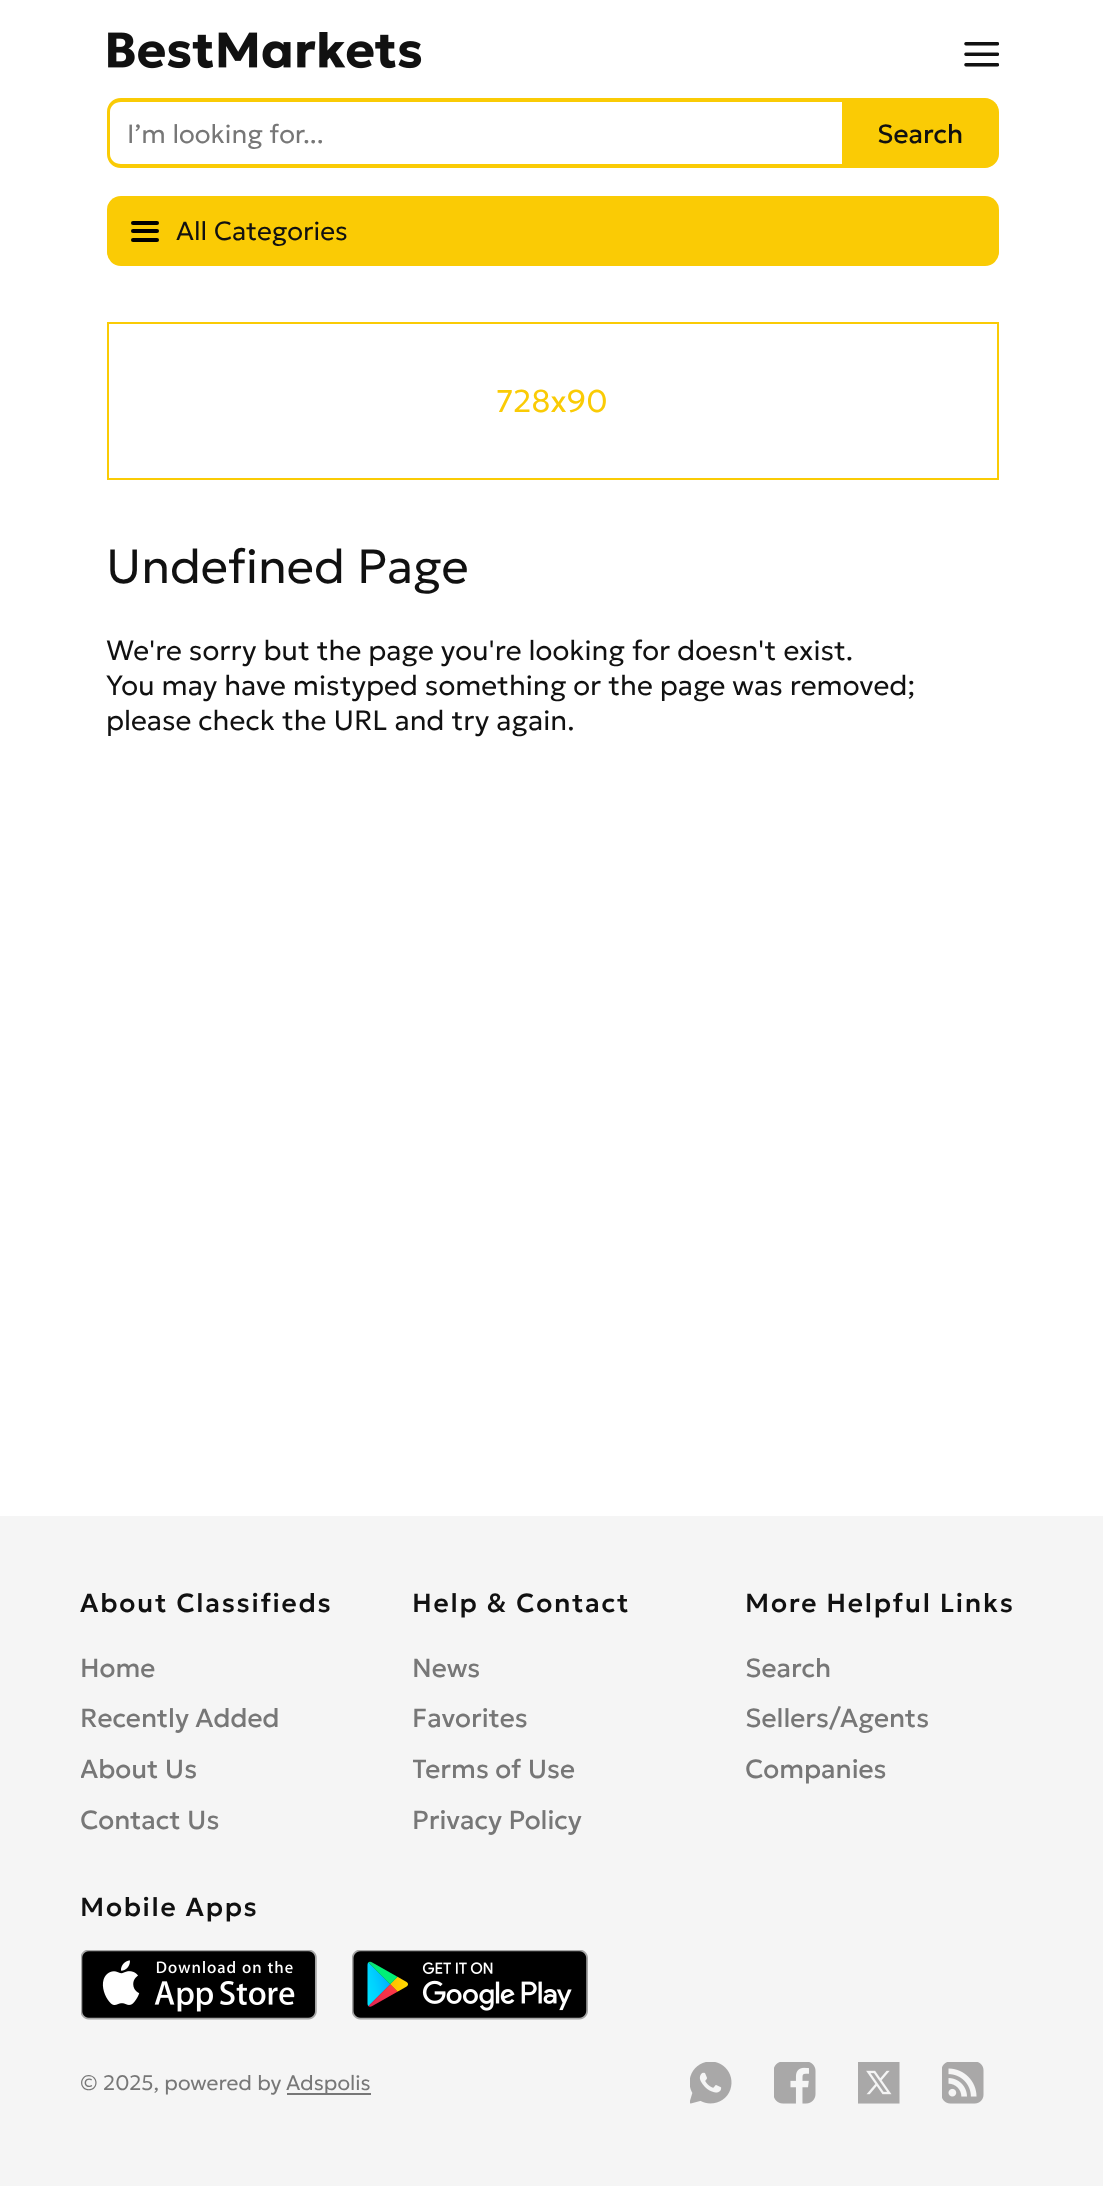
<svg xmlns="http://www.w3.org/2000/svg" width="1103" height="2186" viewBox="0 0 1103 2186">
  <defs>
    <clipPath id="clip1"><path d="M81 1747h115v43H81z"/></clipPath>
    <clipPath id="clip2"><path d="M413 1747h163v43H413z"/></clipPath>
  </defs>
  <rect width="100%" height="100%" fill="#fff"/>
  <image x="108" y="32" width="314" height="37" href="img/1.png"/>
  <image x="964" y="42" width="35" height="25" href="img/2.png"/>
  <path d="M121 98H842V168H121C113 168 107 162 107 154V112C107 104 113 98 121 98ZM121 102H842V164H121C115 164 110 160 110 154V112C110 106 115 102 121 102Z" fill="#facb05" fill-rule="evenodd"/>
  <path d="M842 98H985C992.5 98 999 104.5 999 112V154C999 161.5 992.5 168 985 168H842Z" fill="#facb05"/>
  <rect x="107" y="196" width="892" height="70" rx="14" fill="#facb05"/>
  <rect x="131" y="229" width="28" height="4" rx="2" fill="#000"/>
  <rect x="131" y="221" width="28" height="4" rx="2" fill="#000"/>
  <rect x="131" y="238" width="28" height="4" rx="2" fill="#000"/>
  <path d="M108 323h890v156H108z" fill="none" stroke="#facb05" stroke-width="2"/>
  <path d="M0 1516h1103v670H0z" fill="#f5f5f5"/>
  <image x="81" y="1950" width="236" height="70" href="img/3.png"/>
  <image x="352" y="1950" width="236" height="70" href="img/4.png"/>
  <path d="M287 2093h84v2H287z" fill="#777"/>
  <image x="690" y="2062" width="42" height="42" href="img/5.png"/>
  <image x="774" y="2062" width="42" height="42" href="img/6.png"/>
  <image x="858" y="2062" width="42" height="42" href="img/7.png"/>
  <image x="942" y="2062" width="42" height="42" href="img/8.png"/>
  <text x="127" y="143" font-family="Geologica" font-size="26.25" font-weight="300" fill="#777">I’m looking for...</text>
  <text x="877" y="143" font-family="Geologica" font-size="26.25" fill="#111">Search</text>
  <text x="176" y="240" font-family="Geologica" font-size="26.25" font-weight="300" fill="#111">All Categories</text>
  <text x="496" y="412" font-family="Geologica" font-size="31.5" font-weight="300" fill="#facb05">728x90</text>
  <text x="106" y="583" font-family="Geologica" font-size="48" font-weight="300" fill="#111">Undefined Page</text>
  <g font-family="Geologica" font-size="28" font-weight="300" fill="#111">
    <text x="106" y="660">We're sorry but the page you're looking for doesn't exist.</text>
    <text x="106" y="695">You may have mistyped something or the page was removed;</text>
    <text x="106" y="730">please check the URL and try again.</text>
  </g>
  <text x="80" y="1612" font-family="Geologica" font-size="26.25" font-weight="500" letter-spacing="1.75" fill="#111">About Classifieds</text>
  <g font-family="Geologica" font-size="26.25" fill="#777">
    <text x="80" y="1677">Home</text>
    <text x="80" y="1727">Recently Added</text>
  </g>
  <g clip-path="url(#clip1)">
    <text x="80" y="1778" font-family="Geologica" font-size="26.25" fill="#777">About Us</text>
  </g>
  <text x="80" y="1829" font-family="Geologica" font-size="26.25" fill="#777">Contact Us</text>
  <text x="412" y="1612" font-family="Geologica" font-size="26.25" font-weight="500" letter-spacing="1.75" fill="#111">Help &amp; Contact</text>
  <g font-family="Geologica" font-size="26.25" fill="#777">
    <text x="412" y="1677">News</text>
    <text x="412" y="1727">Favorites</text>
  </g>
  <g clip-path="url(#clip2)">
    <text x="412" y="1778" font-family="Geologica" font-size="26.25" fill="#777">Terms of Use</text>
  </g>
  <text x="412" y="1829" font-family="Geologica" font-size="26.25" fill="#777">Privacy Policy</text>
  <text x="745" y="1612" font-family="Geologica" font-size="26.25" font-weight="500" letter-spacing="1.75" fill="#111">More Helpful Links</text>
  <g font-family="Geologica" font-size="26.25" fill="#777">
    <text x="745" y="1677">Search</text>
    <text x="745" y="1727">Sellers/Agents</text>
    <text x="745" y="1778">Companies</text>
  </g>
  <text x="80" y="1916" font-family="Geologica" font-size="26.25" font-weight="500" letter-spacing="1.75" fill="#111">Mobile Apps</text>
  <g font-family="Geologica" font-size="21" font-weight="300" fill="#777">
    <text x="80" y="2090">© 2025, powered by</text>
    <text x="286" y="2090">Adspolis</text>
  </g>
</svg>
